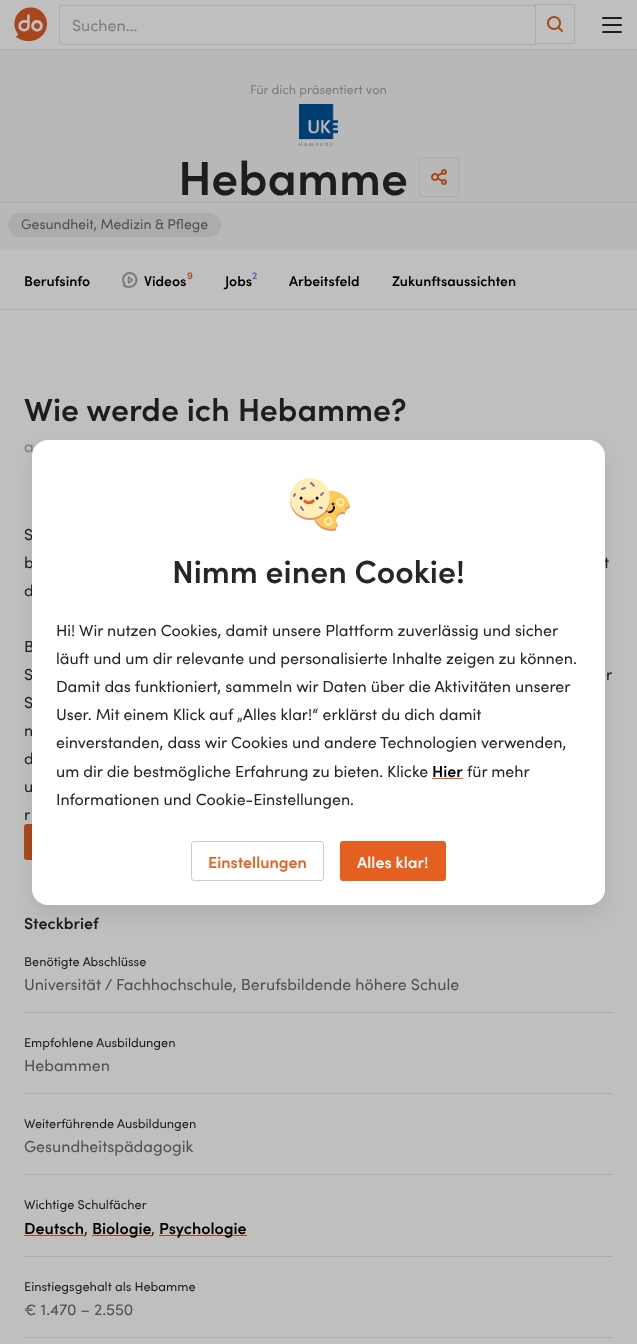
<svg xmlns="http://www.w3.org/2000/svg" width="637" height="1344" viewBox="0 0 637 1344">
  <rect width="100%" height="100%" fill="#b8b8b8"/>
  <path d="M0 0h637v49H0z" fill="#bfbfbf"/>
  <path d="M0 49h637v1H0z" fill="#adadad"/>
  <image x="14" y="7" width="33" height="35" href="img/1.png"/>
  <path d="M62 5.5H535.5V44.5H62C60.5 44.5 59.5 43.5 59.5 42V8C59.5 6.5 60.5 5.5 62 5.5Z" fill="none" stroke="#acacac"/>
  <path d="M535.5 4.5H572C573.5 4.5 574.5 5.5 574.5 7V41C574.5 42.5 573.5 43.5 572 43.5H535.5Z" fill="#bfbfbf" stroke="#acacac"/>
  <image x="547" y="16" width="16" height="16" href="img/2.png"/>
  <rect x="602" y="31" width="20" height="2" rx="1" fill="#1d1d1d"/>
  <rect x="602" y="17" width="20" height="2" rx="1" fill="#1d1d1d"/>
  <rect x="602" y="24" width="20" height="2" rx="1" fill="#1d1d1d"/>
  <image x="299" y="104" width="39" height="42" href="img/3.png"/>
  <rect x="419.5" y="157.5" width="39" height="39" rx="2.5" fill="none" stroke="#acacac"/>
  <image x="431" y="169" width="16" height="16" href="img/4.png"/>
  <path d="M0 202h637v1H0z" fill="#acacac"/>
  <rect x="8" y="213" width="213" height="24" rx="12" fill="#acacac"/>
  <path d="M0 250h637v59H0z" fill="#bfbfbf"/>
  <path d="M0 309h637v1H0z" fill="#acacac"/>
  <image x="122" y="272" width="16" height="16" href="img/5.png"/>
  <path d="M0 310h637v1034H0z" fill="#bfbfbf"/>
  <rect x="24" y="824" width="119" height="36" rx="3" fill="#ac4818"/>
  <path d="M24 1012h589v1H24z" fill="#acacac"/>
  <path d="M24 1093h589v1H24z" fill="#acacac"/>
  <path d="M24 1174h589v1H24z" fill="#acacac"/>
  <path d="M24 1256h589v1H24z" fill="#acacac"/>
  <path d="M24 1235h60v1H24z" fill="#ac4818"/>
  <path d="M92 1235h59v1H92z" fill="#ac4818"/>
  <path d="M159 1235h88v1H159z" fill="#ac4818"/>
  <path d="M24 1337h589v1H24z" fill="#acacac"/>
  <rect x="32" y="450" width="573" height="465" rx="16" fill="#00000014" filter="blur(10px)"/>
  <text x="72" y="31" font-family="Sofia" font-size="16" fill="#7d7d7d">Suchen...</text>
  <text x="250" y="94" font-family="Sofia" font-size="12.75" fill="#7d7d7d">Für dich präsentiert von</text>
  <text x="178" y="195" font-family="Sofia" font-size="48" font-weight="600" fill="#1d1d1d">Hebamme</text>
  <text x="21" y="229" font-family="Sofia" font-size="14" fill="#515151">Gesundheit, Medizin &amp; Pflege</text>
  <g font-family="Sofia" font-size="14" font-weight="600" fill="#000">
    <text x="24" y="286">Berufsinfo</text>
    <text x="144" y="286">Videos</text>
  </g>
  <text x="187" y="279" font-family="Sofia" font-size="10" font-weight="600" fill="#ac4818">9</text>
  <text x="225" y="286" font-family="Sofia" font-size="14" font-weight="600" fill="#000">Jobs</text>
  <text x="252" y="279" font-family="Sofia" font-size="10" font-weight="600" fill="#724da3">2</text>
  <g font-family="Sofia" font-size="14" font-weight="600" fill="#000">
    <text x="289" y="286">Arbeitsfeld</text>
    <text x="392" y="286">Zukunftsaussichten</text>
  </g>
  <text x="24" y="421" font-family="Sofia" font-size="32" font-weight="600" fill="#1d1d1d">Wie werde ich Hebamme?</text>
  <text x="24" y="452" font-family="Sofia" font-size="16" fill="#7d7d7d">a</text>
  <g font-family="Sofia" font-size="16" fill="#1d1d1d">
    <text x="24" y="540">S</text>
    <text x="24" y="568">b</text>
    <text x="604" y="568">t</text>
    <text x="24" y="596">d</text>
    <text x="24" y="652">B</text>
    <text x="24" y="680">S</text>
    <text x="606" y="680">r</text>
    <text x="24" y="708">S</text>
    <text x="24" y="736">n</text>
    <text x="24" y="764">d</text>
    <text x="24" y="792">u</text>
    <text x="24" y="820">r</text>
  </g>
  <text x="24" y="929" font-family="Sofia" font-size="16" font-weight="600" fill="#1d1d1d">Steckbrief</text>
  <text x="24" y="966" font-family="Sofia" font-size="12.75" fill="#1d1d1d">Benötigte Abschlüsse</text>
  <text x="24" y="990" font-family="Sofia" font-size="16" fill="#515151">Universität / Fachhochschule, Berufsbildende höhere Schule</text>
  <text x="24" y="1047" font-family="Sofia" font-size="12.75" fill="#1d1d1d">Empfohlene Ausbildungen</text>
  <text x="24" y="1071" font-family="Sofia" font-size="16" fill="#515151">Hebammen</text>
  <text x="24" y="1128" font-family="Sofia" font-size="12.75" fill="#1d1d1d">Weiterführende Ausbildungen</text>
  <text x="24" y="1152" font-family="Sofia" font-size="16" fill="#515151">Gesundheitspädagogik</text>
  <text x="24" y="1209" font-family="Sofia" font-size="12.75" fill="#1d1d1d">Wichtige Schulfächer</text>
  <text x="24" y="1234" font-family="Sofia" font-size="16" font-weight="600" fill="#000">Deutsch</text>
  <text x="84" y="1234" font-family="Sofia" font-size="16" fill="#1d1d1d">,</text>
  <text x="92" y="1234" font-family="Sofia" font-size="16" font-weight="600" fill="#000">Biologie</text>
  <text x="151" y="1234" font-family="Sofia" font-size="16" fill="#1d1d1d">,</text>
  <text x="159" y="1234" font-family="Sofia" font-size="16" font-weight="600" fill="#000">Psychologie</text>
  <text x="24" y="1291" font-family="Sofia" font-size="12.75" fill="#1d1d1d">Einstiegsgehalt als Hebamme</text>
  <text x="24" y="1315" font-family="Sofia" font-size="16" fill="#515151">€ 1.470 – 2.550</text>
  <rect x="32" y="440" width="573" height="465" rx="16" fill="#fff"/>
  <image x="290" y="478" width="60" height="53" href="img/6.png"/>
  <text x="172" y="583" font-family="Sofia" font-size="32" font-weight="600" fill="#262626">Nimm einen Cookie!</text>
  <g font-family="Sofia" font-size="16" fill="#262626">
    <text x="56" y="636">Hi! Wir nutzen Cookies, damit unsere Plattform zuverlässig und sicher</text>
    <text x="56" y="664">läuft und um dir relevante und personalisierte Inhalte zeigen zu können.</text>
    <text x="56" y="692">Damit das funktioniert, sammeln wir Daten über die Aktivitäten unserer</text>
    <text x="56" y="720">User. Mit einem Klick auf „Alles klar!“ erklärst du dich damit</text>
    <text x="56" y="748">einverstanden, dass wir Cookies und andere Technologien verwenden,</text>
    <text x="56" y="777">um dir die bestmögliche Erfahrung zu bieten. Klicke</text>
  </g>
  <text x="432" y="777" font-family="Sofia" font-size="16" font-weight="600" fill="#000">Hier</text>
  <path d="M432 778h31v1H432z" fill="#e56020"/>
  <g font-family="Sofia" font-size="16" fill="#262626">
    <text x="467" y="777">für mehr</text>
    <text x="56" y="805">Informationen und Cookie-Einstellungen.</text>
  </g>
  <rect x="191.5" y="841.5" width="132" height="39" rx="2.5" fill="none" stroke="#ccc"/>
  <text x="208" y="868" font-family="Sofia" font-size="16" font-weight="600" fill="#e56020">Einstellungen</text>
  <rect x="340" y="841" width="106" height="40" rx="3" fill="#e56020"/>
  <text x="357" y="868" font-family="Sofia" font-size="16" font-weight="600" fill="#fff">Alles klar!</text>
</svg>
